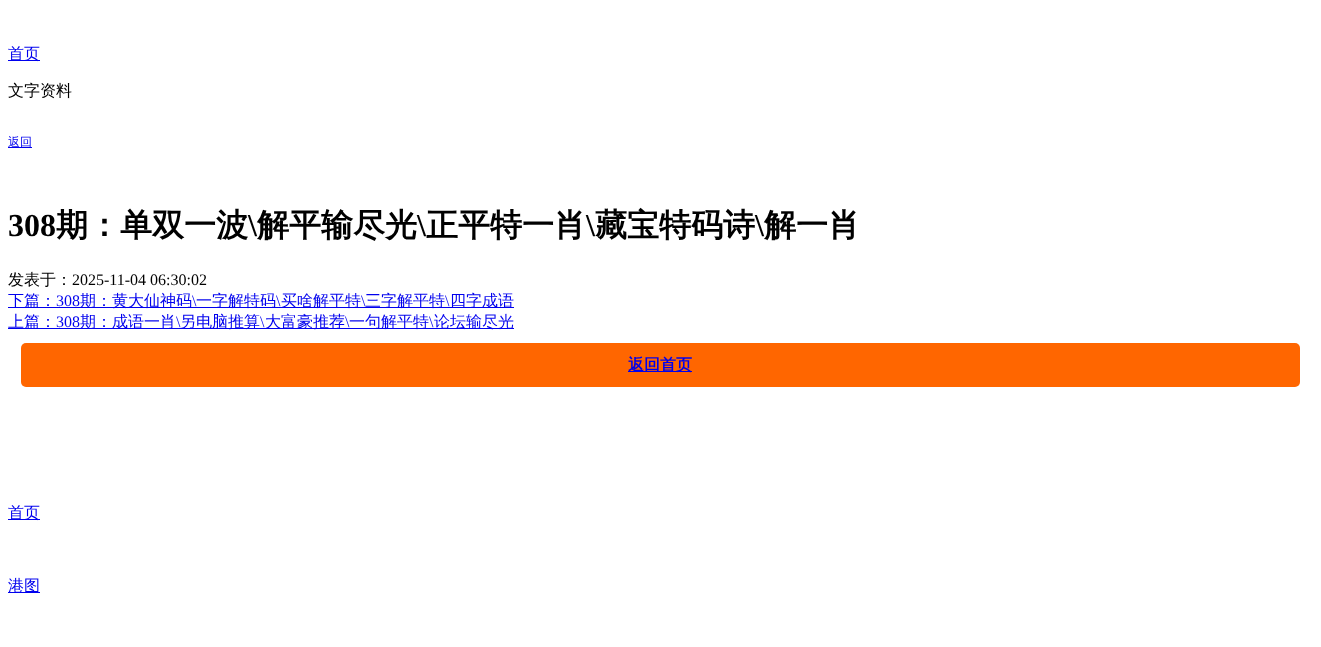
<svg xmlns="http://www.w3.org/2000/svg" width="1321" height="647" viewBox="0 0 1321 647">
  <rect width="100%" height="100%" fill="#fff"/>
  <path d="M8 60h32v1H8z" fill="#00e"/>
  <path d="M8 147h24v1H8z" fill="#00e"/>
  <path d="M8 307h506v1H8z" fill="#00e"/>
  <path d="M8 328h506v1H8z" fill="#00e"/>
  <rect x="21" y="343" width="1279" height="44" rx="5" fill="#f60"/>
  <path d="M628 371h64v1H628z" fill="#00e"/>
  <path d="M8 519h32v1H8z" fill="#00e"/>
  <path d="M8 592h32v1H8z" fill="#00e"/>
  <text x="8" y="59" font-family="WenQuanYi Zen Hei" font-size="16" font-weight="500" fill="#00e">首页</text>
  <text x="8" y="96" font-family="WenQuanYi Zen Hei" font-size="16" font-weight="500" fill="#000">文字资料</text>
  <text x="8" y="146" font-family="WenQuanYi Zen Hei" font-size="12" font-weight="500" fill="#00e">返回</text>
  <text x="8" y="236" font-family="Liberation Serif" font-size="32" font-weight="bold" fill="#000">308</text>
  <text x="56" y="236" font-family="WenQuanYi Zen Hei" font-size="32" font-weight="bold" fill="#000">期：单双一波</text>
  <text x="248" y="236" font-family="Liberation Serif" font-size="32" font-weight="bold" fill="#000">\</text>
  <text x="257" y="236" font-family="WenQuanYi Zen Hei" font-size="32" font-weight="bold" fill="#000">解平输尽光</text>
  <text x="417" y="236" font-family="Liberation Serif" font-size="32" font-weight="bold" fill="#000">\</text>
  <text x="426" y="236" font-family="WenQuanYi Zen Hei" font-size="32" font-weight="bold" fill="#000">正平特一肖</text>
  <text x="586" y="236" font-family="Liberation Serif" font-size="32" font-weight="bold" fill="#000">\</text>
  <text x="595" y="236" font-family="WenQuanYi Zen Hei" font-size="32" font-weight="bold" fill="#000">藏宝特码诗</text>
  <text x="755" y="236" font-family="Liberation Serif" font-size="32" font-weight="bold" fill="#000">\</text>
  <text x="764" y="236" font-family="WenQuanYi Zen Hei" font-size="32" font-weight="bold" fill="#000">解一肖</text>
  <text x="8" y="285" font-family="WenQuanYi Zen Hei" font-size="16" font-weight="500" fill="#000">发表于：</text>
  <text x="72" y="285" font-family="Liberation Serif" font-size="16" fill="#000">2025-11-04 06:30:02</text>
  <text x="8" y="306" font-family="WenQuanYi Zen Hei" font-size="16" font-weight="500" fill="#00e">下篇：</text>
  <text x="56" y="306" font-family="Liberation Serif" font-size="16" fill="#00e">308</text>
  <text x="80" y="306" font-family="WenQuanYi Zen Hei" font-size="16" font-weight="500" fill="#00e">期：黄大仙神码</text>
  <text x="192" y="306" font-family="Liberation Serif" font-size="16" fill="#00e">\</text>
  <text x="196" y="306" font-family="WenQuanYi Zen Hei" font-size="16" font-weight="500" fill="#00e">一字解特码</text>
  <text x="276" y="306" font-family="Liberation Serif" font-size="16" fill="#00e">\</text>
  <text x="281" y="306" font-family="WenQuanYi Zen Hei" font-size="16" font-weight="500" fill="#00e">买啥解平特</text>
  <text x="361" y="306" font-family="Liberation Serif" font-size="16" fill="#00e">\</text>
  <text x="365" y="306" font-family="WenQuanYi Zen Hei" font-size="16" font-weight="500" fill="#00e">三字解平特</text>
  <text x="445" y="306" font-family="Liberation Serif" font-size="16" fill="#00e">\</text>
  <g font-family="WenQuanYi Zen Hei" font-size="16" font-weight="500" fill="#00e">
    <text x="450" y="306">四字成语</text>
    <text x="8" y="327">上篇：</text>
  </g>
  <text x="56" y="327" font-family="Liberation Serif" font-size="16" fill="#00e">308</text>
  <text x="80" y="327" font-family="WenQuanYi Zen Hei" font-size="16" font-weight="500" fill="#00e">期：成语一肖</text>
  <text x="176" y="327" font-family="Liberation Serif" font-size="16" fill="#00e">\</text>
  <text x="180" y="327" font-family="WenQuanYi Zen Hei" font-size="16" font-weight="500" fill="#00e">另电脑推算</text>
  <text x="260" y="327" font-family="Liberation Serif" font-size="16" fill="#00e">\</text>
  <text x="265" y="327" font-family="WenQuanYi Zen Hei" font-size="16" font-weight="500" fill="#00e">大富豪推荐</text>
  <text x="345" y="327" font-family="Liberation Serif" font-size="16" fill="#00e">\</text>
  <text x="349" y="327" font-family="WenQuanYi Zen Hei" font-size="16" font-weight="500" fill="#00e">一句解平特</text>
  <text x="429" y="327" font-family="Liberation Serif" font-size="16" fill="#00e">\</text>
  <text x="434" y="327" font-family="WenQuanYi Zen Hei" font-size="16" font-weight="500" fill="#00e">论坛输尽光</text>
  <text x="628" y="370" font-family="WenQuanYi Zen Hei" font-size="16" font-weight="bold" fill="#00e">返回首页</text>
  <g font-family="WenQuanYi Zen Hei" font-size="16" font-weight="500" fill="#00e">
    <text x="8" y="518">首页</text>
    <text x="8" y="591">港图</text>
  </g>
</svg>
